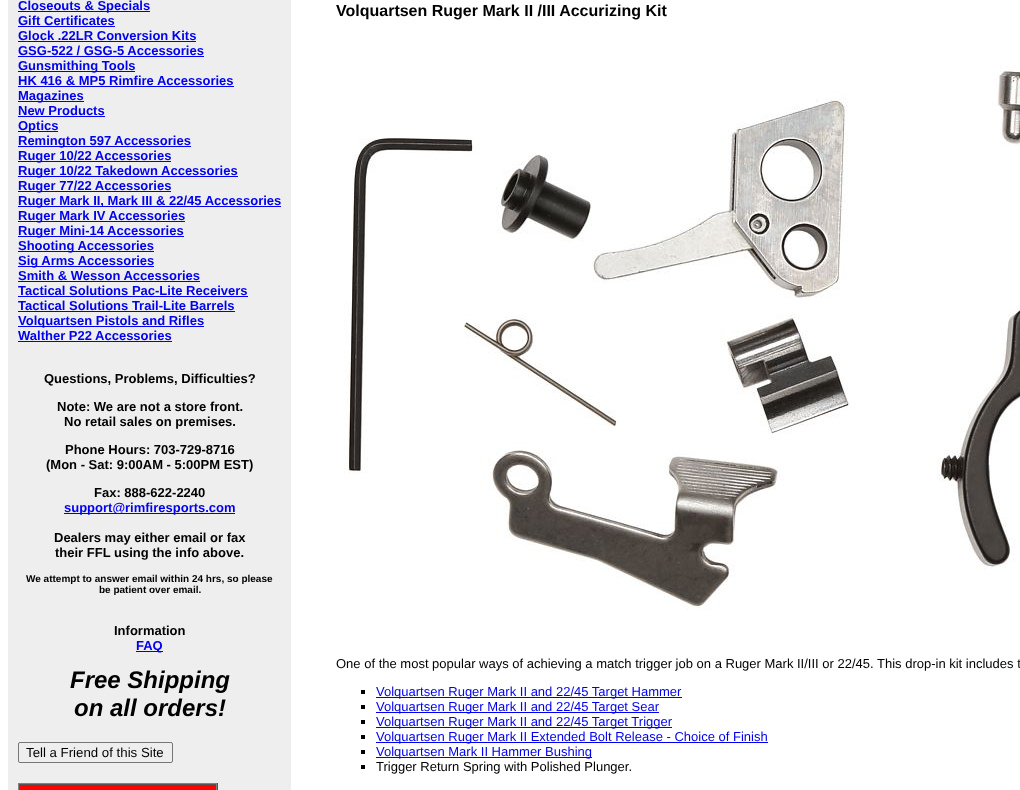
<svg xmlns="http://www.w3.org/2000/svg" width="1020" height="790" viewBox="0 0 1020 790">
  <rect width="100%" height="100%" fill="#fff"/>
  <path d="M8 0h283v790H8z" fill="#eee"/>
  <path d="M18 11h132v1H18z" fill="#00e"/>
  <path d="M18 26h97v1H18z" fill="#00e"/>
  <path d="M18 41h178v1H18z" fill="#00e"/>
  <path d="M18 56h186v1H18z" fill="#00e"/>
  <path d="M18 71h117v1H18z" fill="#00e"/>
  <path d="M18 86h216v1H18z" fill="#00e"/>
  <path d="M18 101h66v1H18z" fill="#00e"/>
  <path d="M18 116h87v1H18z" fill="#00e"/>
  <path d="M18 131h40v1H18z" fill="#00e"/>
  <path d="M18 146h173v1H18z" fill="#00e"/>
  <path d="M18 161h153v1H18z" fill="#00e"/>
  <path d="M18 176h220v1H18z" fill="#00e"/>
  <path d="M18 191h153v1H18z" fill="#00e"/>
  <path d="M18 206h263v1H18z" fill="#00e"/>
  <path d="M18 221h167v1H18z" fill="#00e"/>
  <path d="M18 236h166v1H18z" fill="#00e"/>
  <path d="M18 251h136v1H18z" fill="#00e"/>
  <path d="M18 266h136v1H18z" fill="#00e"/>
  <path d="M18 281h182v1H18z" fill="#00e"/>
  <path d="M18 296h230v1H18z" fill="#00e"/>
  <path d="M18 311h217v1H18z" fill="#00e"/>
  <path d="M18 326h186v1H18z" fill="#00e"/>
  <path d="M18 341h154v1H18z" fill="#00e"/>
  <path d="M64 513h171v1H64z" fill="#00e"/>
  <path d="M136 651h27v1H136z" fill="#00e"/>
  <rect x="18.5" y="742.5" width="154" height="20" rx="1.5" fill="none" stroke="#767676"/>
  <path d="M18 783h200v1H18z" fill="#808080"/>
  <path d="M217 783h1v7H217z" fill="#555"/>
  <path d="M18 783h1v7H18z" fill="#808080"/>
  <path d="M19 784h198v1H19z" fill="#555"/>
  <path d="M216 784h1v6H216z" fill="#808080"/>
  <path d="M19 784h1v6H19z" fill="#555"/>
  <path d="M20 785h196v5H20z" fill="#f00"/>
  <image x="344" y="66" width="676" height="544" href="img/1.png"/>
  <path d="M361 690h4v4H361z" fill="#000"/>
  <path d="M376 697h306v1H376z" fill="#00e"/>
  <path d="M361 705h4v4H361z" fill="#000"/>
  <path d="M376 712h283v1H376z" fill="#00e"/>
  <path d="M361 720h4v4H361z" fill="#000"/>
  <path d="M376 727h296v1H376z" fill="#00e"/>
  <path d="M361 735h4v4H361z" fill="#000"/>
  <path d="M376 742h392v1H376z" fill="#00e"/>
  <path d="M361 750h4v4H361z" fill="#000"/>
  <path d="M376 757h216v1H376z" fill="#00e"/>
  <path d="M361 765h4v4H361z" fill="#000"/>
  <g font-family="Liberation Sans" font-size="13" font-weight="bold" fill="#00e">
    <text x="18" y="10">Closeouts &amp; Specials</text>
    <text x="18" y="25">Gift Certificates</text>
    <text x="18" y="40">Glock .22LR Conversion Kits</text>
    <text x="18" y="55">GSG-522 / GSG-5 Accessories</text>
    <text x="18" y="70">Gunsmithing Tools</text>
    <text x="18" y="85">HK 416 &amp; MP5 Rimfire Accessories</text>
    <text x="18" y="100">Magazines</text>
    <text x="18" y="115">New Products</text>
    <text x="18" y="130">Optics</text>
    <text x="18" y="145">Remington 597 Accessories</text>
    <text x="18" y="160">Ruger 10/22 Accessories</text>
    <text x="18" y="175">Ruger 10/22 Takedown Accessories</text>
    <text x="18" y="190">Ruger 77/22 Accessories</text>
    <text x="18" y="205">Ruger Mark II, Mark III &amp; 22/45 Accessories</text>
    <text x="18" y="220">Ruger Mark IV Accessories</text>
    <text x="18" y="235">Ruger Mini-14 Accessories</text>
    <text x="18" y="250">Shooting Accessories</text>
    <text x="18" y="265">Sig Arms Accessories</text>
    <text x="18" y="280">Smith &amp; Wesson Accessories</text>
    <text x="18" y="295">Tactical Solutions Pac-Lite Receivers</text>
    <text x="18" y="310">Tactical Solutions Trail-Lite Barrels</text>
    <text x="18" y="325">Volquartsen Pistols and Rifles</text>
    <text x="18" y="340">Walther P22 Accessories</text>
  </g>
  <g font-family="Liberation Sans" font-size="13" font-weight="bold" fill="#000">
    <text x="44" y="383">Questions, Problems, Difficulties?</text>
    <text x="57" y="411">Note: We are not a store front.</text>
    <text x="64" y="426">No retail sales on premises.</text>
    <text x="65" y="454">Phone Hours: 703-729-8716</text>
    <text x="46" y="469">(Mon - Sat: 9:00AM - 5:00PM EST)</text>
    <text x="94" y="497">Fax: 888-622-2240</text>
  </g>
  <text x="64" y="512" font-family="Liberation Sans" font-size="13" font-weight="bold" fill="#00e">support@rimfiresports.com</text>
  <g font-family="Liberation Sans" font-size="13" font-weight="bold" fill="#000">
    <text x="54" y="542">Dealers may either email or fax</text>
    <text x="55" y="557">their FFL using the info above.</text>
  </g>
  <g font-family="Liberation Sans" font-size="10" font-weight="bold" fill="#000">
    <text x="26" y="582">We attempt to answer email within 24 hrs, so please</text>
    <text x="99" y="593">be patient over email.</text>
  </g>
  <text x="114" y="635" font-family="Liberation Sans" font-size="13" font-weight="bold" fill="#000">Information</text>
  <text x="136" y="650" font-family="Liberation Sans" font-size="13" font-weight="bold" fill="#00e">FAQ</text>
  <g font-family="Liberation Sans" font-size="24" font-weight="bold" font-style="italic" fill="#000">
    <text x="70" y="688">Free Shipping</text>
    <text x="74" y="716">on all orders!</text>
  </g>
  <text x="26" y="757" font-family="Liberation Sans" font-size="13.25" fill="#000">Tell a Friend of this Site</text>
  <text x="336" y="16" font-family="Liberation Sans" font-size="16" font-weight="bold" fill="#000">Volquartsen Ruger Mark II /III Accurizing Kit</text>
  <text x="336" y="668" font-family="Liberation Sans" font-size="13" fill="#000">One of the most popular ways of achieving a match trigger job on a Ruger Mark II/III or 22/45. This drop-in kit includes t</text>
  <g font-family="Liberation Sans" font-size="13" fill="#00e">
    <text x="376" y="696">Volquartsen Ruger Mark II and 22/45 Target Hammer</text>
    <text x="376" y="711">Volquartsen Ruger Mark II and 22/45 Target Sear</text>
    <text x="376" y="726">Volquartsen Ruger Mark II and 22/45 Target Trigger</text>
    <text x="376" y="741">Volquartsen Ruger Mark II Extended Bolt Release - Choice of Finish</text>
    <text x="376" y="756">Volquartsen Mark II Hammer Bushing</text>
  </g>
  <text x="376" y="771" font-family="Liberation Sans" font-size="13" fill="#000">Trigger Return Spring with Polished Plunger.</text>
</svg>
